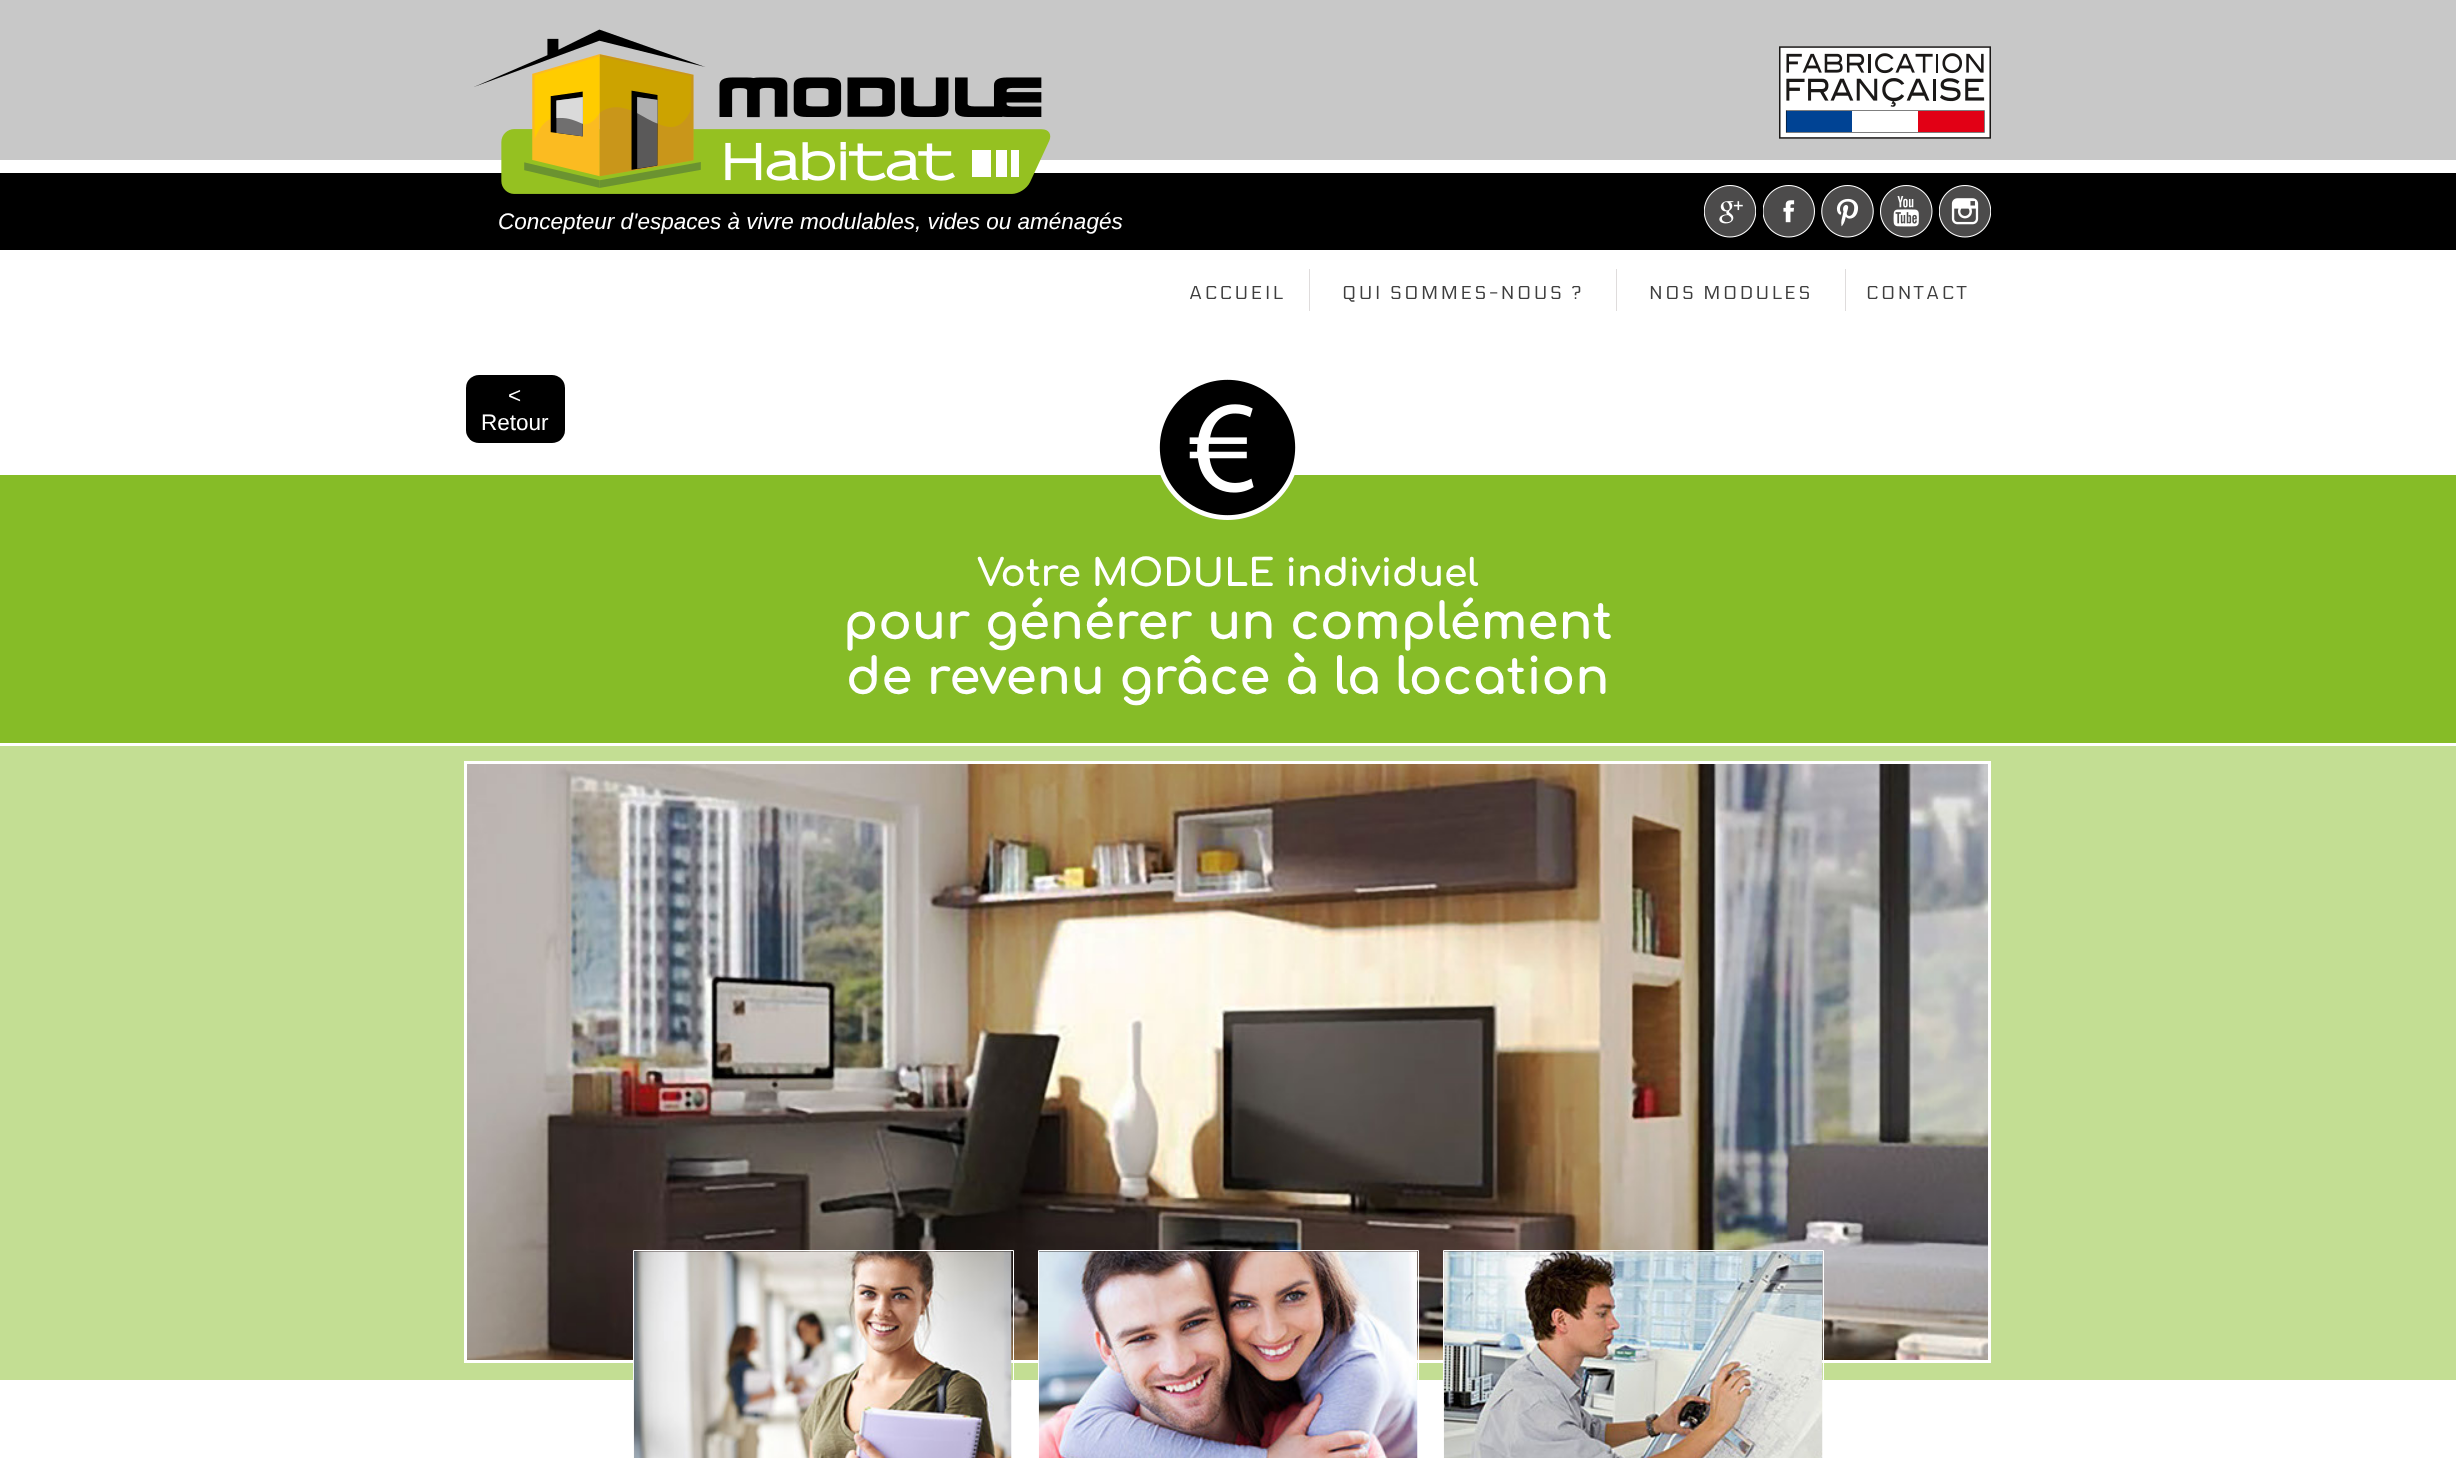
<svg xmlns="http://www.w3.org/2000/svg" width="2456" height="1458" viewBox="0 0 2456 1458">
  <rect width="100%" height="100%" fill="#fff"/>
  <path d="M0 0h2456v160H0z" fill="#c8c8c8"/>
  <path d="M1779 46h212v93H1779z" fill="#fff"/>
  <image x="1779" y="46" width="212" height="93" href="img/1.png"/>
  <path d="M0 173h2456v77H0z" fill="#000"/>
  <image x="474" y="29" width="577" height="165" href="img/2.png"/>
  <image x="1704" y="185" width="52" height="53" href="img/3.png"/>
  <image x="1763" y="185" width="52" height="53" href="img/4.png"/>
  <image x="1821" y="185" width="53" height="53" href="img/5.png"/>
  <image x="1880" y="185" width="53" height="53" href="img/6.png"/>
  <image x="1939" y="185" width="52" height="53" href="img/7.png"/>
  <path d="M1309 269h1v42H1309z" fill="#dfdcdc"/>
  <path d="M1616 269h1v42H1616z" fill="#dfdcdc"/>
  <path d="M1845 269h1v42H1845z" fill="#dfdcdc"/>
  <path d="M0 475h2456v268H0z" fill="#86bc27"/>
  <image x="1159" y="379" width="137" height="141" href="img/8.png"/>
  <rect x="466" y="375" width="99" height="68" rx="13" fill="#000"/>
  <path d="M0 746h2456v634H0z" fill="#c3de93"/>
  <image x="467" y="764" width="1521" height="596" href="img/9.png"/>
  <path d="M465.5 762.5h1524v599H465.5z" fill="none" stroke="#fff" stroke-width="3"/>
  <path d="M633.5 1250.5h380v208H633.5z" fill="none" stroke="#fff"/>
  <image x="633" y="1251" width="379" height="207" href="img/10.png"/>
  <path d="M1038.5 1250.5h380v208H1038.5z" fill="none" stroke="#fff"/>
  <image x="1038" y="1251" width="380" height="207" href="img/11.png"/>
  <path d="M1443.5 1250.5h380v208H1443.5z" fill="none" stroke="#fff"/>
  <image x="1443" y="1251" width="380" height="207" href="img/12.png"/>
  <text x="498" y="229" font-family="Liberation Sans" font-size="22.5" font-style="italic" fill="#fff">Concepteur d'espaces à vivre modulables, vides ou aménagés</text>
  <g font-family="Electrolize" font-size="18.75" letter-spacing="2.5" fill="#3e3e3e">
    <text x="1189" y="299">ACCUEIL</text>
    <text x="1342" y="299">QUI SOMMES-NOUS ?</text>
    <text x="1649" y="299">NOS MODULES</text>
    <text x="1866" y="299">CONTACT</text>
  </g>
  <g font-family="Liberation Sans" font-size="22.5" fill="#fff">
    <text x="508" y="403">&lt;</text>
    <text x="481" y="430">Retour</text>
  </g>
  <text x="977" y="586" font-family="Comfortaa" font-size="37.5" font-weight="bold" fill="#fff">Votre MODULE individuel</text>
  <g font-family="Comfortaa" font-size="50" font-weight="bold" fill="#fff">
    <text x="843" y="639">pour générer un complément</text>
    <text x="846" y="694">de revenu grâce à la location</text>
  </g>
</svg>
